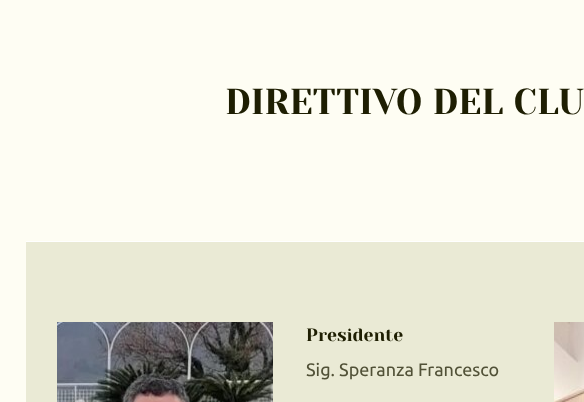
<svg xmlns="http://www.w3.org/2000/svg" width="584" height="402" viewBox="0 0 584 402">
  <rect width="100%" height="100%" fill="#fff"/>
  <path d="M0 0h26v402H0z" fill="#fefdf3"/>
  <path d="M26 0h558v241H26z" fill="#fefdf3"/>
  <path d="M26 242h558v160H26z" fill="#eaead5"/>
  <image x="57" y="322" width="216" height="80" href="img/1.png"/>
  <image x="554" y="322" width="30" height="80" href="img/2.png"/>
  <text x="225" y="114" font-family="Yeseva One" font-size="36" fill="#1e1e02">DIRETTIVO DEL CLU</text>
  <text x="306" y="341" font-family="Yeseva One" font-size="17.75" fill="#1e1e02">Presidente</text>
  <text x="306" y="376" font-family="Ubuntu" font-size="18" fill="#515137">Sig. Speranza Francesco</text>
</svg>
